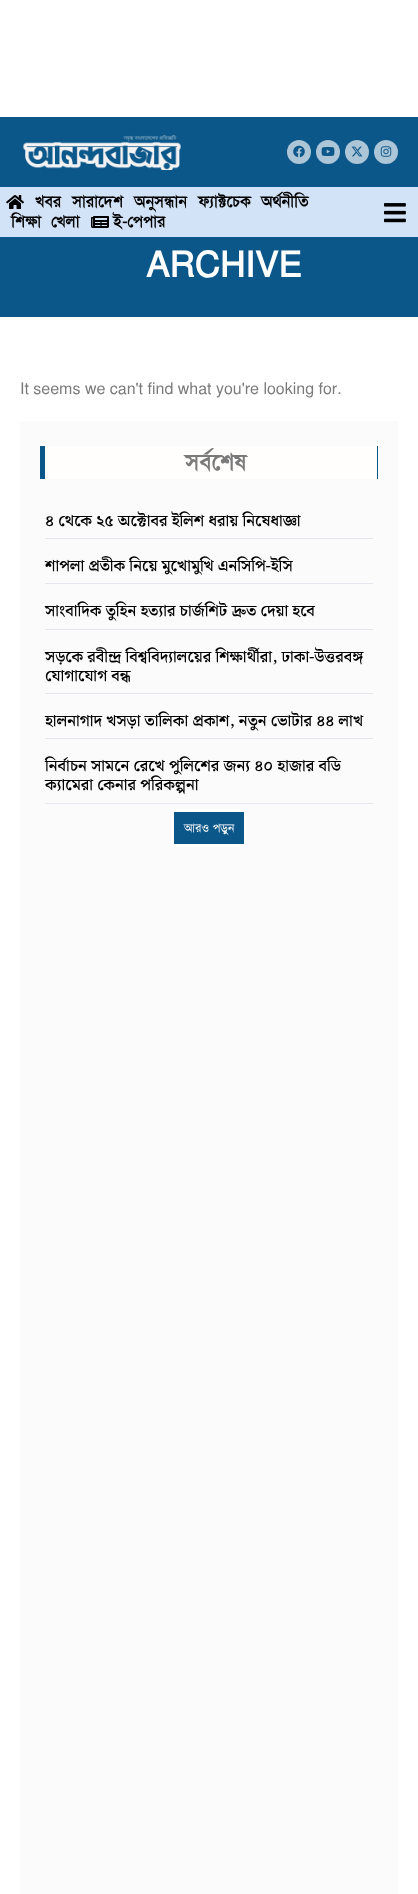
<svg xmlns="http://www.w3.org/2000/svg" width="418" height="1894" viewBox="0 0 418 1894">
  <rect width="100%" height="100%" fill="#fff"/>
  <path d="M0 117h418v70H0z" fill="#0c578a"/>
  <image x="22" y="135" width="159" height="35" href="img/1.png"/>
  <circle cx="299" cy="152" r="12" fill="#acc6d7"/>
  <image x="293" y="145" width="12" height="13" href="img/2.png"/>
  <circle cx="328" cy="152" r="12" fill="#acc6d7"/>
  <image x="321" y="147" width="14" height="9" href="img/3.png"/>
  <circle cx="357" cy="152" r="12" fill="#acc6d7"/>
  <image x="351" y="146" width="12" height="11" href="img/4.png"/>
  <circle cx="386" cy="152" r="12" fill="#acc6d7"/>
  <image x="380" y="146" width="12" height="11" href="img/5.png"/>
  <path d="M0 187h418v50H0z" fill="#d3e3f7"/>
  <image x="6" y="195" width="18" height="14" href="img/6.png"/>
  <image x="91" y="216" width="18" height="12" href="img/7.png"/>
  <image x="384" y="203" width="22" height="20" href="img/8.png"/>
  <path d="M0 237h418v80H0z" fill="#0c578a"/>
  <path d="M20 421h378v1473H20z" fill="#fbfbfb"/>
  <path d="M45 446h332v33H45z" fill="#fffefd"/>
  <path d="M377 446h1v33H377z" fill="#0c578a"/>
  <path d="M40 446h5v33H40z" fill="#0c578a"/>
  <path d="M45 538h328v1H45z" fill="#e4e7ee"/>
  <path d="M45 583h328v1H45z" fill="#e4e7ee"/>
  <path d="M45 629h328v1H45z" fill="#e4e7ee"/>
  <path d="M45 693h328v1H45z" fill="#e4e7ee"/>
  <path d="M45 738h328v1H45z" fill="#e4e7ee"/>
  <path d="M45 803h328v1H45z" fill="#e4e7ee"/>
  <rect x="172.5" y="810.5" width="73" height="35" rx="1.5" fill="#0c578a" stroke="#fff" stroke-width="3"/>
  <g font-family="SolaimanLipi" font-size="16" font-weight="bold" fill="#000">
    <text x="35" y="207">খবর</text>
    <text x="72" y="207">সারাদেশ</text>
    <text x="134" y="207">অনুসন্ধান</text>
    <text x="198" y="207">ফ্যাক্টচেক</text>
    <text x="261" y="207">অর্থনী‌তি</text>
    <text x="11" y="227">শিক্ষা</text>
    <text x="51" y="227">খেলা</text>
    <text x="113" y="227">ই-পেপার</text>
  </g>
  <text x="146" y="277" font-family="SolaimanLipi" font-size="35" font-weight="bold" fill="#fff">ARCHIVE</text>
  <text x="20" y="394" font-family="SolaimanLipi" font-size="16" fill="#7a7a7a">It seems we can't find what you're looking for.</text>
  <text x="185" y="470" font-family="SolaimanLipi" font-size="23" font-weight="bold" fill="#7a7a7a">সর্বশেষ</text>
  <g font-family="Noto Serif Bengali" font-size="16" font-weight="600" fill="#000">
    <text x="45" y="526">৪ থেকে ২৫ অক্টোবর ইলিশ ধরায় নিষেধাজ্ঞা</text>
    <text x="45" y="571">শাপলা প্রতীক নিয়ে মুখোমুখি এনসিপি-ইসি</text>
    <text x="45" y="616">সাংবাদিক তুহিন হত্যার চার্জশিট দ্রুত দেয়া হবে</text>
    <text x="45" y="662">সড়কে রবীন্দ্র বিশ্ববিদ্যালয়ের শিক্ষার্থীরা, ঢাকা-উত্তরবঙ্গ</text>
    <text x="45" y="681">যোগাযোগ বন্ধ</text>
    <text x="45" y="726">হালনাগাদ খসড়া তালিকা প্রকাশ, নতুন ভোটার ৪৪ লাখ</text>
    <text x="45" y="771">নির্বাচন সামনে রেখে পুলিশের জন্য ৪০ হাজার বডি</text>
    <text x="45" y="790">ক্যামেরা কেনার পরিকল্পনা</text>
  </g>
  <text x="184" y="832" font-family="SolaimanLipi" font-size="12" fill="#fff">আরও পড়ুন</text>
</svg>
